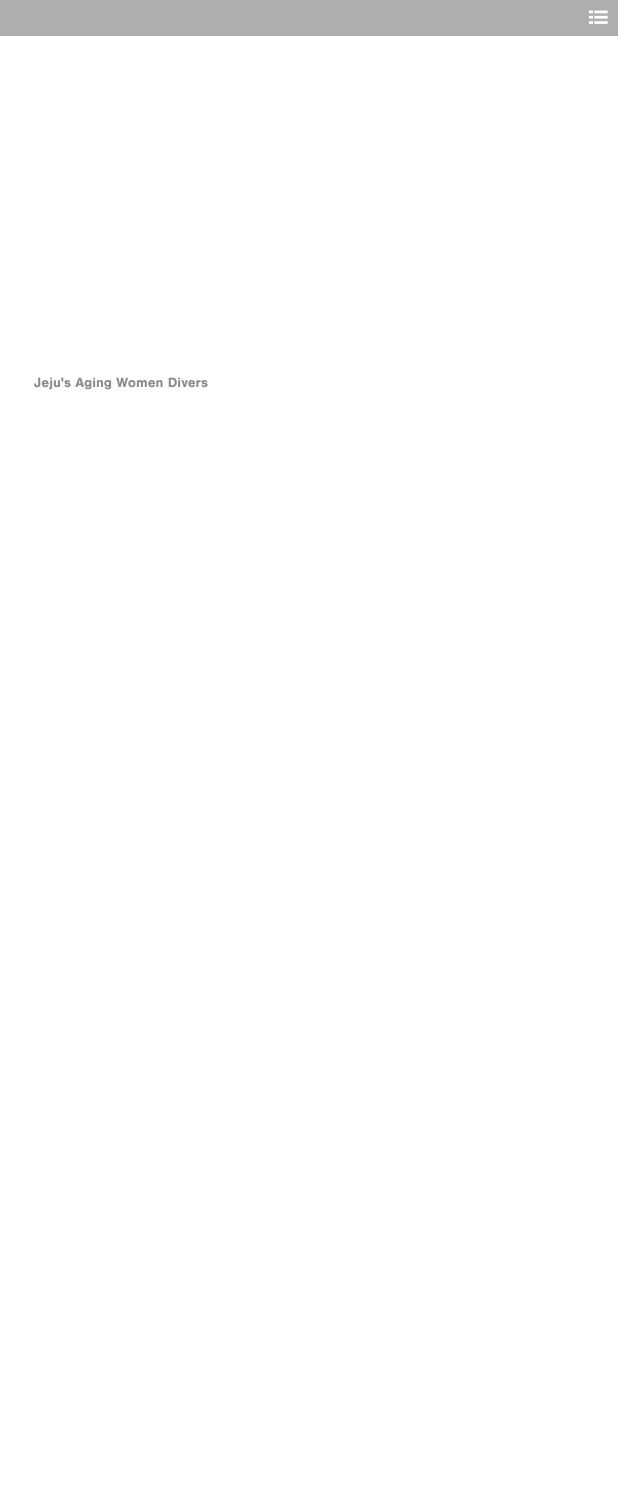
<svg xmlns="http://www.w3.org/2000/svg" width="618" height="1493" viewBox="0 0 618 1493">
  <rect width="100%" height="100%" fill="#fff"/>
  <path d="M0 0h618v36H0z" fill="#aeaeae"/>
  <image x="588" y="10" width="20" height="14" href="img/1.png"/>
  <text x="34" y="387" font-family="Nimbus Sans" font-size="14" font-weight="bold" fill="#8c8c8c">Jeju's Aging Women Divers</text>
</svg>
